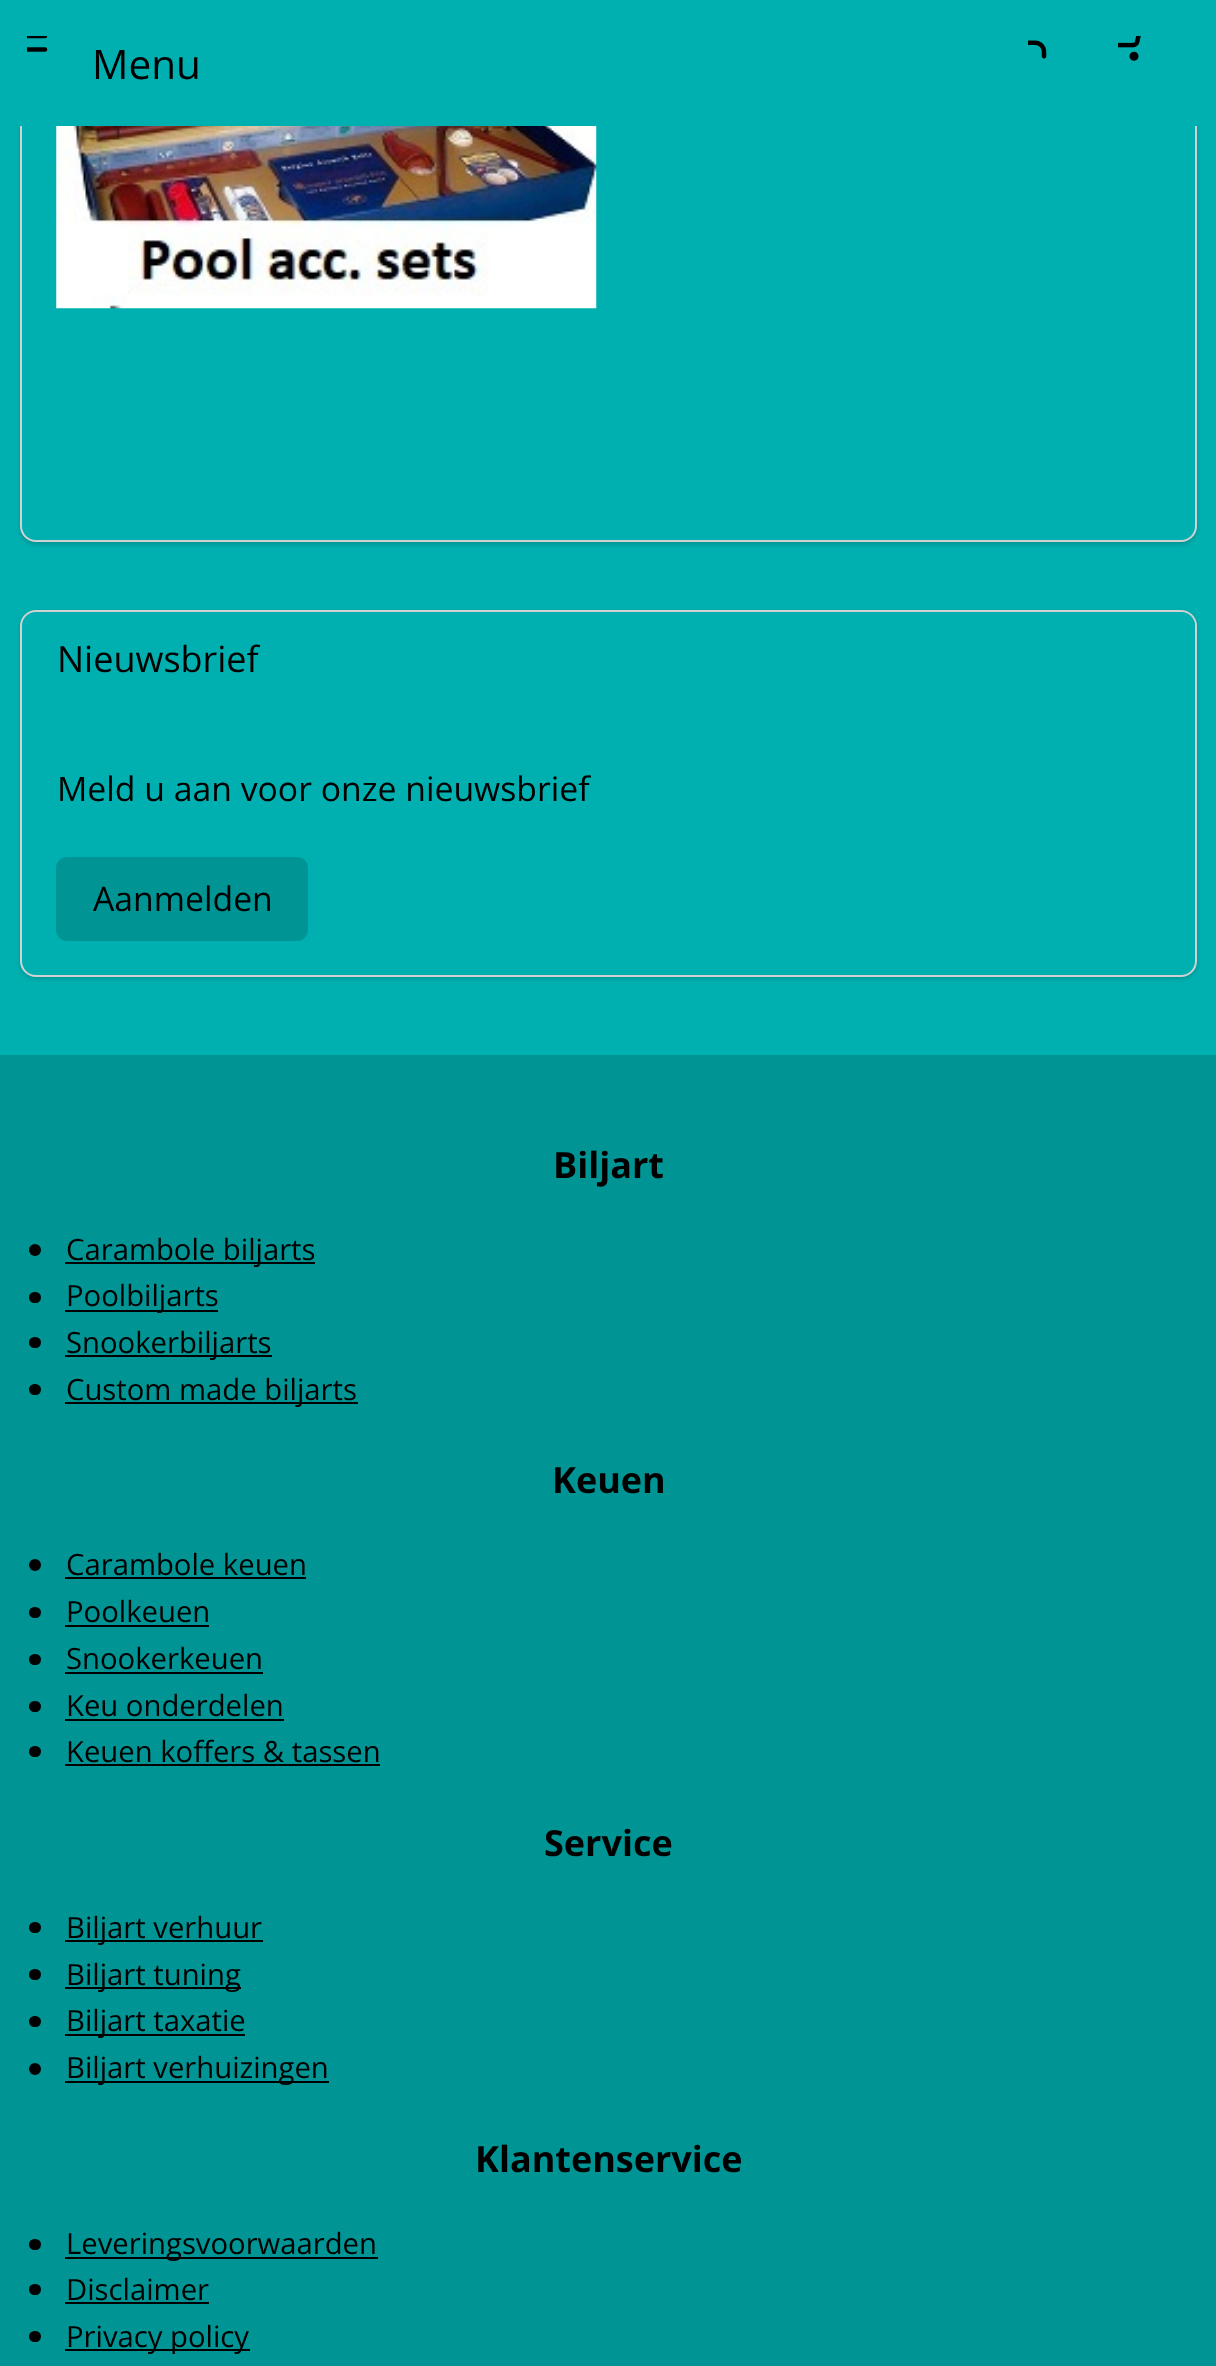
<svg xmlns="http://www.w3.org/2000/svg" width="1216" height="2366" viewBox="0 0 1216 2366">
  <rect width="100%" height="100%" fill="#00b0b0"/>
  <rect x="20" y="-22" width="1177" height="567" rx="16" fill="#00000026" filter="blur(2px)"/>
  <rect x="21" y="-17" width="1175" height="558" rx="15" fill="#00b0b0" stroke="#d1d1d1" stroke-width="2"/>
  <path d="M17 0h1183v126H17z" fill="#00b0b0"/>
  <image x="27" y="36" width="21" height="16" href="img/1.png"/>
  <image x="1028" y="40" width="19" height="19" href="img/2.png"/>
  <image x="1118" y="36" width="23" height="25" href="img/3.png"/>
  <image x="56" y="126" width="541" height="183" href="img/4.png"/>
  <rect x="20" y="612" width="1177" height="367" rx="16" fill="#00000026" filter="blur(2px)"/>
  <rect x="21" y="611" width="1175" height="365" rx="15" fill="#00b0b0" stroke="#d1d1d1" stroke-width="2"/>
  <path d="M37 612H1181C1188.5 612 1195 618.5 1195 626V707H23V626C23 618.5 29.5 612 37 612Z" fill="#00b0b0"/>
  <rect x="56" y="857" width="252" height="84" rx="11" fill="#009494"/>
  <path d="M0 1055h1216v1311H0z" fill="#009494"/>
  <circle cx="35" cy="1250" r="6" fill="#000"/>
  <path d="M65 1262h250v2H65z" fill="#000"/>
  <rect x="29" y="1292" width="12" height="11" rx="5.5" fill="#000"/>
  <path d="M65 1310h153v2H65z" fill="#000"/>
  <rect x="29" y="1337" width="12" height="11" rx="5.5" fill="#000"/>
  <path d="M65 1355h207v2H65z" fill="#000"/>
  <rect x="29" y="1384" width="12" height="11" rx="5.5" fill="#000"/>
  <path d="M65 1402h293v2H65z" fill="#000"/>
  <circle cx="35" cy="1565" r="6" fill="#000"/>
  <path d="M65 1577h241v2H65z" fill="#000"/>
  <rect x="29" y="1607" width="12" height="11" rx="5.5" fill="#000"/>
  <path d="M65 1625h144v2H65z" fill="#000"/>
  <rect x="29" y="1654" width="12" height="11" rx="5.5" fill="#000"/>
  <path d="M65 1672h198v2H65z" fill="#000"/>
  <rect x="29" y="1701" width="12" height="11" rx="5.5" fill="#000"/>
  <path d="M65 1719h219v2H65z" fill="#000"/>
  <rect x="29" y="1746" width="12" height="11" rx="5.5" fill="#000"/>
  <path d="M65 1764h315v2H65z" fill="#000"/>
  <rect x="29" y="1922" width="12" height="11" rx="5.5" fill="#000"/>
  <path d="M65 1940h198v2H65z" fill="#000"/>
  <rect x="29" y="1969" width="12" height="11" rx="5.5" fill="#000"/>
  <path d="M65 1987h176v2H65z" fill="#000"/>
  <rect x="29" y="2016" width="12" height="11" rx="5.5" fill="#000"/>
  <path d="M65 2034h180v2H65z" fill="#000"/>
  <circle cx="35" cy="2069" r="6" fill="#000"/>
  <path d="M65 2081h264v2H65z" fill="#000"/>
  <rect x="29" y="2239" width="12" height="11" rx="5.5" fill="#000"/>
  <path d="M65 2257h313v2H65z" fill="#000"/>
  <rect x="29" y="2284" width="12" height="11" rx="5.5" fill="#000"/>
  <path d="M65 2302h144v2H65z" fill="#000"/>
  <rect x="29" y="2331" width="12" height="11" rx="5.5" fill="#000"/>
  <path d="M65 2349h185v2H65z" fill="#000"/>
  <text x="92" y="79" font-family="Open Sans" font-size="40.5" fill="#000">Menu</text>
  <text x="57" y="672" font-family="Open Sans" font-size="36" fill="#000">Nieuwsbrief</text>
  <g font-family="Open Sans" font-size="33.75" fill="#000">
    <text x="57" y="801">Meld u aan voor onze nieuwsbrief</text>
    <text x="93" y="911">Aanmelden</text>
  </g>
  <text x="553" y="1178" font-family="Open Sans" font-size="36" font-weight="bold" fill="#000">Biljart</text>
  <g font-family="Open Sans" font-size="29.25" fill="#000">
    <text x="66" y="1260">Carambole biljarts</text>
    <text x="66" y="1306">Poolbiljarts</text>
    <text x="66" y="1353">Snookerbiljarts</text>
    <text x="66" y="1400">Custom made biljarts</text>
  </g>
  <text x="552" y="1493" font-family="Open Sans" font-size="36" font-weight="bold" fill="#000">Keuen</text>
  <g font-family="Open Sans" font-size="29.25" fill="#000">
    <text x="66" y="1575">Carambole keuen</text>
    <text x="66" y="1622">Poolkeuen</text>
    <text x="66" y="1669">Snookerkeuen</text>
    <text x="66" y="1716">Keu onderdelen</text>
    <text x="66" y="1762">Keuen koffers &amp; tassen</text>
  </g>
  <text x="544" y="1856" font-family="Open Sans" font-size="36" font-weight="bold" fill="#000">Service</text>
  <g font-family="Open Sans" font-size="29.25" fill="#000">
    <text x="66" y="1938">Biljart verhuur</text>
    <text x="66" y="1985">Biljart tuning</text>
    <text x="66" y="2031">Biljart taxatie</text>
    <text x="66" y="2078">Biljart verhuizingen</text>
  </g>
  <text x="475" y="2172" font-family="Open Sans" font-size="36" font-weight="bold" fill="#000">Klantenservice</text>
  <g font-family="Open Sans" font-size="29.25" fill="#000">
    <text x="66" y="2254">Leveringsvoorwaarden</text>
    <text x="66" y="2300">Disclaimer</text>
    <text x="66" y="2347">Privacy policy</text>
  </g>
</svg>
